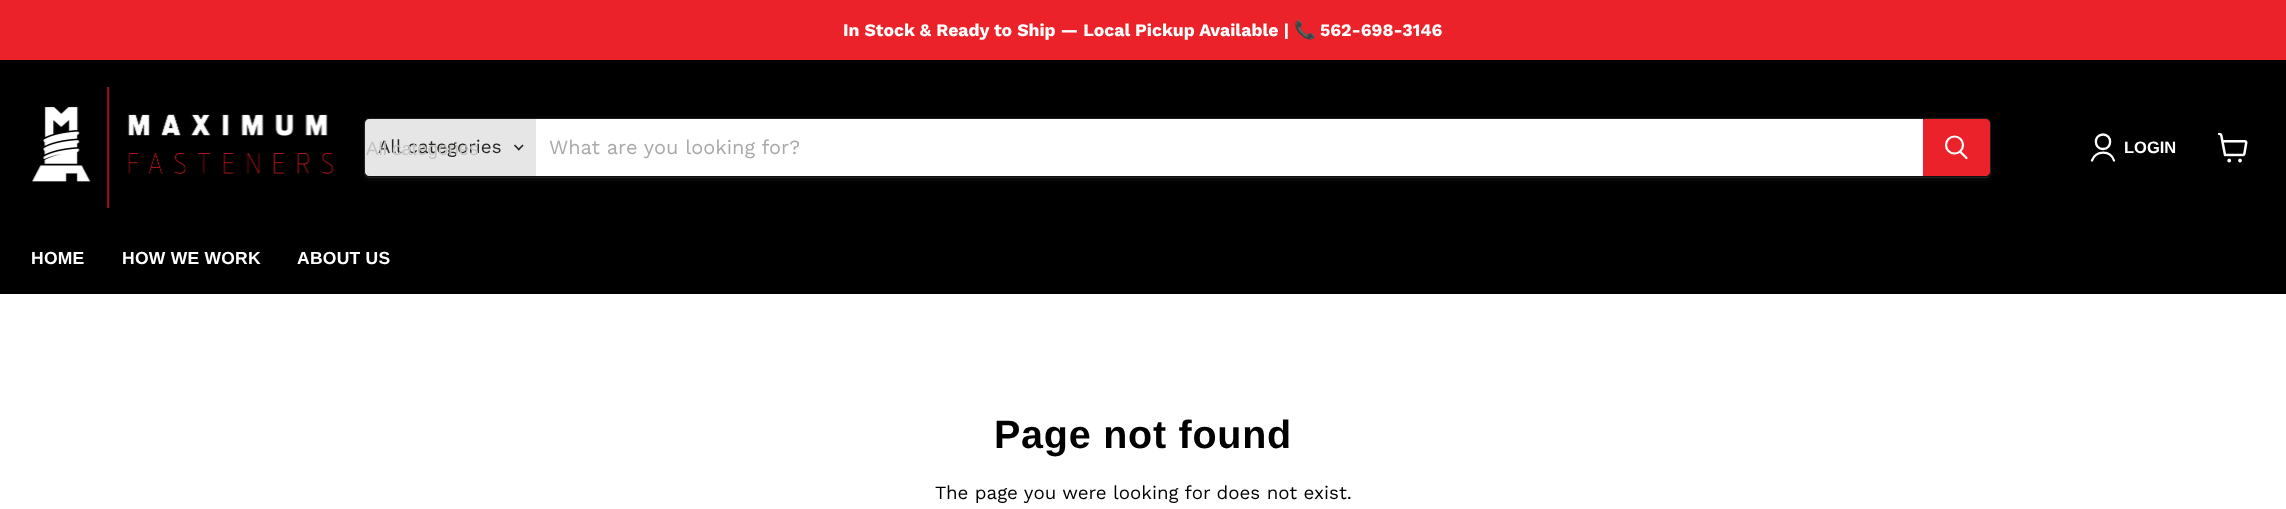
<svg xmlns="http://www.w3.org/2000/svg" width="2286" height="509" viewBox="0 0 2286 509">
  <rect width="100%" height="100%" fill="#fff"/>
  <path d="M0 0h2286v60H0z" fill="#eb2229"/>
  <path d="M0 60h2286v234H0z" fill="#000"/>
  <image x="32" y="86" width="302" height="122" href="img/1.png"/>
  <rect x="364" y="120" width="1627" height="60" rx="5" fill="#8080801c" filter="blur(2px)"/>
  <rect x="364.5" y="118.5" width="1626" height="59" rx="4.5" fill="none" stroke="#80808033"/>
  <path d="M369 119H536V176H369C367 176 365 174 365 172V123C365 121 367 119 369 119Z" fill="#e6e6e6"/>
  <image x="514" y="144" width="10" height="7" href="img/2.png"/>
  <path d="M536 119h1387v57H536z" fill="#fff"/>
  <path d="M1923.5 119.5H1986C1988 119.5 1989.5 121 1989.5 123V172C1989.5 174 1988 175.5 1986 175.5H1923.5Z" fill="#eb2229" stroke="#eb2229"/>
  <path d="M1966.5 158L1960.5 152" fill="none" stroke="#fff" stroke-width="2.2" stroke-linecap="round"/>
  <circle cx="1954.5" cy="145" r="8.5" fill="none" stroke="#fff" stroke-width="2.2"/>
  <path d="M2103 149C2112.5 149 2112.5 134.5 2103 134.5C2093.5 134.5 2093.5 149 2103 149ZM2114 160.5C2110.5 150 2096 150 2092 160.5" fill="none" stroke="#fff" stroke-width="2.3" stroke-linecap="round" stroke-linejoin="round"/>
  <image x="2218" y="133" width="30" height="30" href="img/3.png"/>
  <text x="843" y="36" font-family="Work Sans" font-size="17.6" font-weight="bold" fill="#fff">In Stock &amp; Ready to Ship — Local Pickup Available |</text>
  <text x="1294" y="36" font-family="Noto Color Emoji" font-size="17.6" font-weight="bold" fill="#fff">📞</text>
  <text x="1320" y="36" font-family="Work Sans" font-size="17.6" font-weight="bold" fill="#fff">562-698-3146</text>
  <text x="378" y="153" font-family="Work Sans" font-size="18.75" fill="#282827">All categories</text>
  <text x="366" y="155" font-family="Liberation Sans" font-size="18.75" fill="#c3c3c2">All categories</text>
  <text x="549" y="154" font-family="Work Sans" font-size="20" fill="#a9a9a9">What are you looking for?</text>
  <text x="2124" y="153" font-family="Liberation Sans" font-size="16.5" font-weight="bold" fill="#fff">LOGIN</text>
  <g font-family="Liberation Sans" font-size="17.5" font-weight="bold" letter-spacing="0.25" fill="#fff">
    <text x="31" y="264">HOME</text>
    <text x="122" y="264">HOW WE WORK</text>
    <text x="297" y="264">ABOUT US</text>
  </g>
  <text x="994" y="448" font-family="Liberation Sans" font-size="39.5" font-weight="bold" letter-spacing="0.75" fill="#000">Page not found</text>
  <text x="935" y="499" font-family="Work Sans" font-size="18.75" fill="#000">The page you were looking for does not exist.</text>
</svg>
